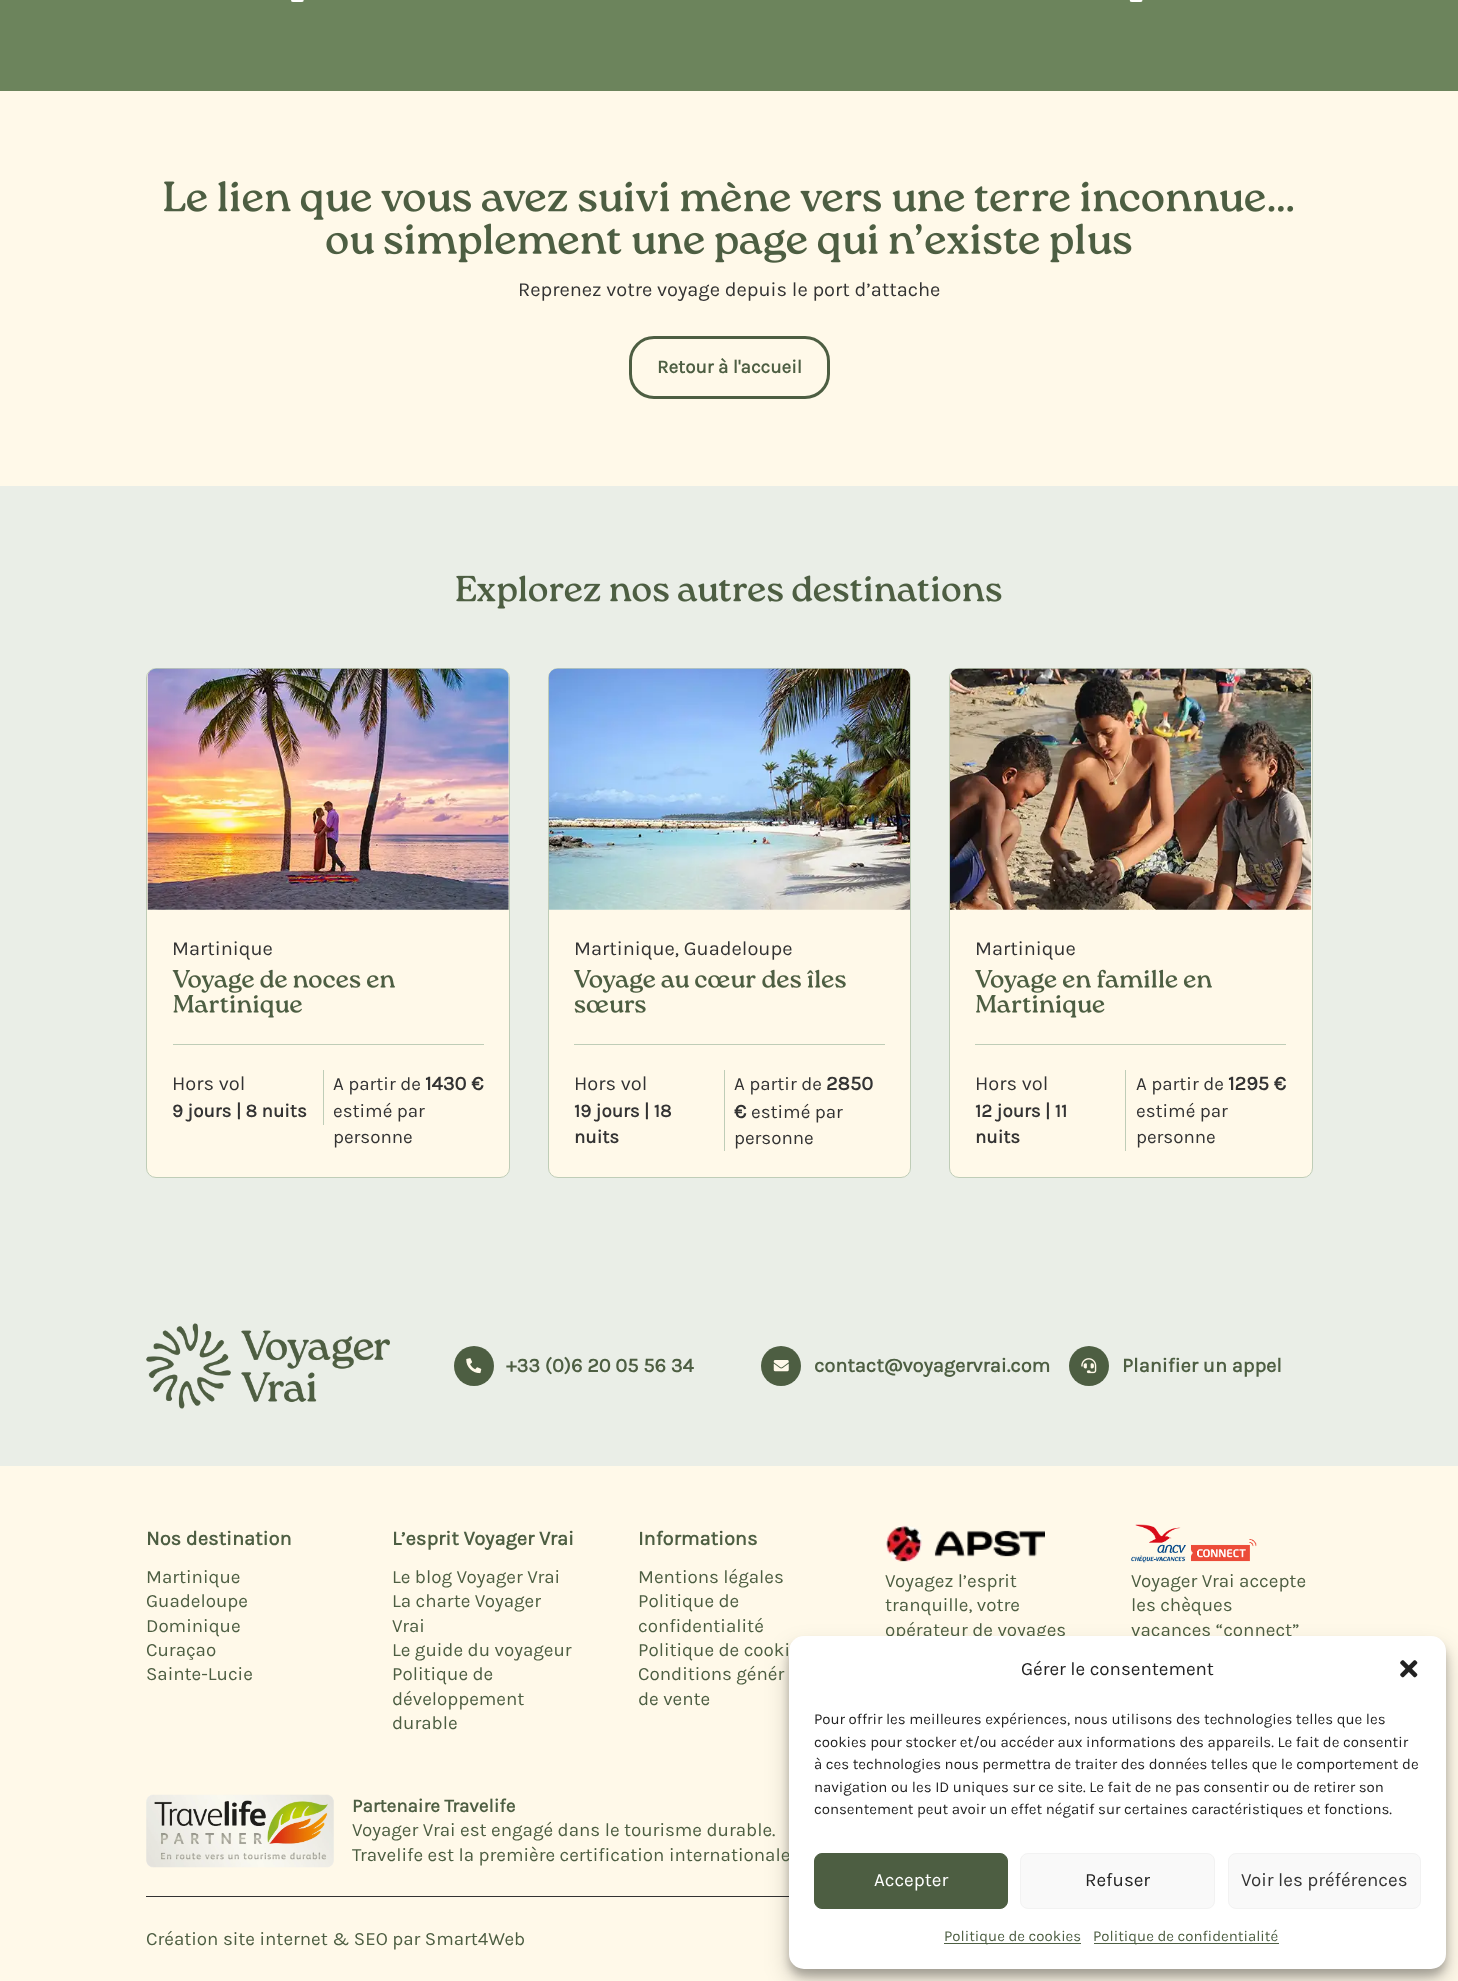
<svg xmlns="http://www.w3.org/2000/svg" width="1458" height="1981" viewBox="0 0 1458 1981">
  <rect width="100%" height="100%" fill="#fff9e9"/>
  <path d="M0 0h1458v91H0z" fill="#6c845c"/>
  <image x="291" y="0" width="852" height="2" href="img/1.png"/>
  <image x="164" y="181" width="1130" height="39" href="img/2.png"/>
  <image x="326" y="223" width="806" height="40" href="img/3.png"/>
  <rect x="630.5" y="337.5" width="198" height="60" rx="23.5" fill="none" stroke="#4d5e42" stroke-width="3"/>
  <path d="M0 486h1458v980H0z" fill="#eaeee7"/>
  <image x="456" y="575" width="546" height="34" href="img/4.png"/>
  <rect x="146.5" y="668.5" width="363" height="509" rx="9.5" fill="#fff9e9" stroke="#bfcdb7"/>
  <image x="147" y="668" width="362" height="242" href="img/5.png"/>
  <image x="172" y="969" width="223" height="24" href="img/6.png"/>
  <image x="173" y="995" width="129" height="23" href="img/7.png"/>
  <path d="M173 1044h311v1H173z" fill="#bfcdb7"/>
  <path d="M323 1070h1v55H323z" fill="#bfcdb7"/>
  <rect x="548.5" y="668.5" width="362" height="509" rx="9.5" fill="#fff9e9" stroke="#bfcdb7"/>
  <image x="548" y="668" width="362" height="242" href="img/8.png"/>
  <image x="573" y="969" width="273" height="24" href="img/9.png"/>
  <image x="574" y="1000" width="72" height="13" href="img/10.png"/>
  <path d="M574 1044h311v1H574z" fill="#bfcdb7"/>
  <path d="M724 1070h1v81H724z" fill="#bfcdb7"/>
  <rect x="949.5" y="668.5" width="363" height="509" rx="9.5" fill="#fff9e9" stroke="#bfcdb7"/>
  <image x="950" y="668" width="362" height="242" href="img/11.png"/>
  <image x="975" y="969" width="237" height="24" href="img/12.png"/>
  <image x="976" y="995" width="129" height="23" href="img/13.png"/>
  <path d="M975 1044h311v1H975z" fill="#bfcdb7"/>
  <path d="M1125 1070h1v81H1125z" fill="#bfcdb7"/>
  <image x="146" y="1323" width="244" height="86" href="img/14.png"/>
  <circle cx="474" cy="1366" r="20" fill="#4d5e42"/>
  <image x="466" y="1358" width="16" height="16" href="img/15.png"/>
  <circle cx="781" cy="1366" r="20" fill="#4d5e42"/>
  <image x="773" y="1360" width="16" height="12" href="img/16.png"/>
  <circle cx="1089" cy="1366" r="20" fill="#4d5e42"/>
  <image x="1081" y="1358" width="16" height="16" href="img/17.png"/>
  <image x="886" y="1525" width="159" height="37" href="img/18.png"/>
  <image x="1131" y="1524" width="126" height="39" href="img/19.png"/>
  <image x="146" y="1794" width="188" height="74" href="img/20.png"/>
  <path d="M146 1896h643v1H146z" fill="#333"/>
  <rect x="789" y="1644" width="657" height="332" rx="15" fill="#0000003b" filter="blur(4px)"/>
  <rect x="789" y="1649" width="657" height="332" rx="15" fill="#00000030" filter="blur(12.5px)"/>
  <text x="518" y="296" font-family="Karla" font-size="20" fill="#333">Reprenez votre voyage depuis le port d’attache</text>
  <text x="657" y="373" font-family="Karla" font-size="18.75" font-weight="bold" fill="#4d5e42">Retour à l'accueil</text>
  <g font-family="Karla" font-size="20" fill="#333">
    <text x="172" y="955">Martinique</text>
    <text x="172" y="1090">Hors vol</text>
  </g>
  <text x="172" y="1117" font-family="Karla" font-size="18.75" font-weight="bold" fill="#333">9 jours | 8 nuits</text>
  <text x="333" y="1090" font-family="Karla" font-size="18.75" fill="#333">A partir de</text>
  <text x="425" y="1090" font-family="Karla" font-size="20" font-weight="bold" fill="#333">1430 €</text>
  <g font-family="Karla" font-size="18.75" fill="#333">
    <text x="333" y="1117">estimé par</text>
    <text x="333" y="1143">personne</text>
  </g>
  <g font-family="Karla" font-size="20" fill="#333">
    <text x="574" y="955">Martinique, Guadeloupe</text>
    <text x="574" y="1090">Hors vol</text>
  </g>
  <g font-family="Karla" font-size="18.75" font-weight="bold" fill="#333">
    <text x="574" y="1117">19 jours | 18</text>
    <text x="574" y="1143">nuits</text>
  </g>
  <text x="734" y="1090" font-family="Karla" font-size="18.75" fill="#333">A partir de</text>
  <g font-family="Karla" font-size="20" font-weight="bold" fill="#333">
    <text x="826" y="1090">2850</text>
    <text x="734" y="1118">€</text>
  </g>
  <g font-family="Karla" font-size="18.75" fill="#333">
    <text x="751" y="1118">estimé par</text>
    <text x="734" y="1144">personne</text>
  </g>
  <g font-family="Karla" font-size="20" fill="#333">
    <text x="975" y="955">Martinique</text>
    <text x="975" y="1090">Hors vol</text>
  </g>
  <g font-family="Karla" font-size="18.75" font-weight="bold" fill="#333">
    <text x="975" y="1117">12 jours | 11</text>
    <text x="975" y="1143">nuits</text>
  </g>
  <text x="1136" y="1090" font-family="Karla" font-size="18.75" fill="#333">A partir de</text>
  <text x="1228" y="1090" font-family="Karla" font-size="20" font-weight="bold" fill="#333">1295 €</text>
  <g font-family="Karla" font-size="18.75" fill="#333">
    <text x="1136" y="1117">estimé par</text>
    <text x="1136" y="1143">personne</text>
  </g>
  <g font-family="Karla" font-size="20" font-weight="bold" fill="#4d5e42">
    <text x="506" y="1372">+33 (0)6 20 05 56 34</text>
    <text x="814" y="1372">contact@voyagervrai.com</text>
    <text x="1122" y="1372">Planifier un appel</text>
    <text x="146" y="1545">Nos destination</text>
  </g>
  <g font-family="Karla" font-size="18.75" fill="#4d5e42">
    <text x="146" y="1583">Martinique</text>
    <text x="146" y="1607">Guadeloupe</text>
    <text x="146" y="1632">Dominique</text>
    <text x="146" y="1656">Curaçao</text>
    <text x="146" y="1680">Sainte-Lucie</text>
  </g>
  <text x="392" y="1545" font-family="Karla" font-size="20" font-weight="bold" fill="#4d5e42">L’esprit Voyager Vrai</text>
  <g font-family="Karla" font-size="18.75" fill="#4d5e42">
    <text x="392" y="1583">Le blog Voyager Vrai</text>
    <text x="392" y="1607">La charte Voyager</text>
    <text x="392" y="1632">Vrai</text>
    <text x="392" y="1656">Le guide du voyageur</text>
    <text x="392" y="1680">Politique de</text>
    <text x="392" y="1705">développement</text>
    <text x="392" y="1729">durable</text>
  </g>
  <text x="638" y="1545" font-family="Karla" font-size="20" font-weight="bold" fill="#4d5e42">Informations</text>
  <g font-family="Karla" font-size="18.75" fill="#4d5e42">
    <text x="638" y="1583">Mentions légales</text>
    <text x="638" y="1607">Politique de</text>
    <text x="638" y="1632">confidentialité</text>
    <text x="638" y="1656">Politique de cooki</text>
    <text x="638" y="1680">Conditions génér</text>
    <text x="638" y="1705">de vente</text>
    <text x="885" y="1587">Voyagez l’esprit</text>
    <text x="885" y="1611">tranquille, votre</text>
    <text x="885" y="1636">opérateur de voyages</text>
    <text x="1131" y="1587">Voyager Vrai accepte</text>
    <text x="1131" y="1611">les chèques</text>
    <text x="1131" y="1636">vacances “connect”</text>
  </g>
  <text x="352" y="1812" font-family="Karla" font-size="18.75" font-weight="bold" fill="#4d5e42">Partenaire Travelife</text>
  <g font-family="Karla" font-size="18.75" fill="#4d5e42">
    <text x="352" y="1836">Voyager Vrai est engagé dans le tourisme durable.</text>
    <text x="352" y="1861">Travelife est la première certification internationale</text>
    <text x="146" y="1945">Création site internet &amp; SEO par Smart4Web</text>
  </g>
  <rect x="789" y="1636" width="657" height="333" rx="15" fill="#fff"/>
  <text x="1021" y="1675" font-family="Karla" font-size="18.75" fill="#222">Gérer le consentement</text>
  <image x="1400" y="1660" width="18" height="18" href="img/21.png"/>
  <g font-family="Karla" font-size="15" fill="#222">
    <text x="814" y="1724">Pour offrir les meilleures expériences, nous utilisons des technologies telles que les</text>
    <text x="814" y="1747">cookies pour stocker et/ou accéder aux informations des appareils. Le fait de consentir</text>
    <text x="814" y="1769">à ces technologies nous permettra de traiter des données telles que le comportement de</text>
    <text x="814" y="1792">navigation ou les ID uniques sur ce site. Le fait de ne pas consentir ou de retirer son</text>
    <text x="814" y="1814">consentement peut avoir un effet négatif sur certaines caractéristiques et fonctions.</text>
  </g>
  <rect x="814.5" y="1853.5" width="193" height="55" rx="7.5" fill="#4d5e42" stroke="#4d5e42"/>
  <text x="874" y="1886" font-family="Karla" font-size="18.75" fill="#fff">Accepter</text>
  <rect x="1020.5" y="1853.5" width="194" height="55" rx="7.5" fill="#f9f9f9" stroke="#f2f2f2"/>
  <text x="1085" y="1886" font-family="Karla" font-size="18.75" fill="#222">Refuser</text>
  <rect x="1228.5" y="1853.5" width="192" height="55" rx="7.5" fill="#f9f9f9" stroke="#f2f2f2"/>
  <text x="1241" y="1886" font-family="Karla" font-size="18.75" fill="#333">Voir les préférences</text>
  <path d="M944 1943h137v1H944z" fill="#4d5e42"/>
  <text x="944" y="1941" font-family="Karla" font-size="15" fill="#4d5e42">Politique de cookies</text>
  <path d="M1094 1943h185v1H1094z" fill="#4d5e42"/>
  <text x="1093" y="1941" font-family="Karla" font-size="15" fill="#4d5e42">Politique de confidentialité</text>
</svg>
